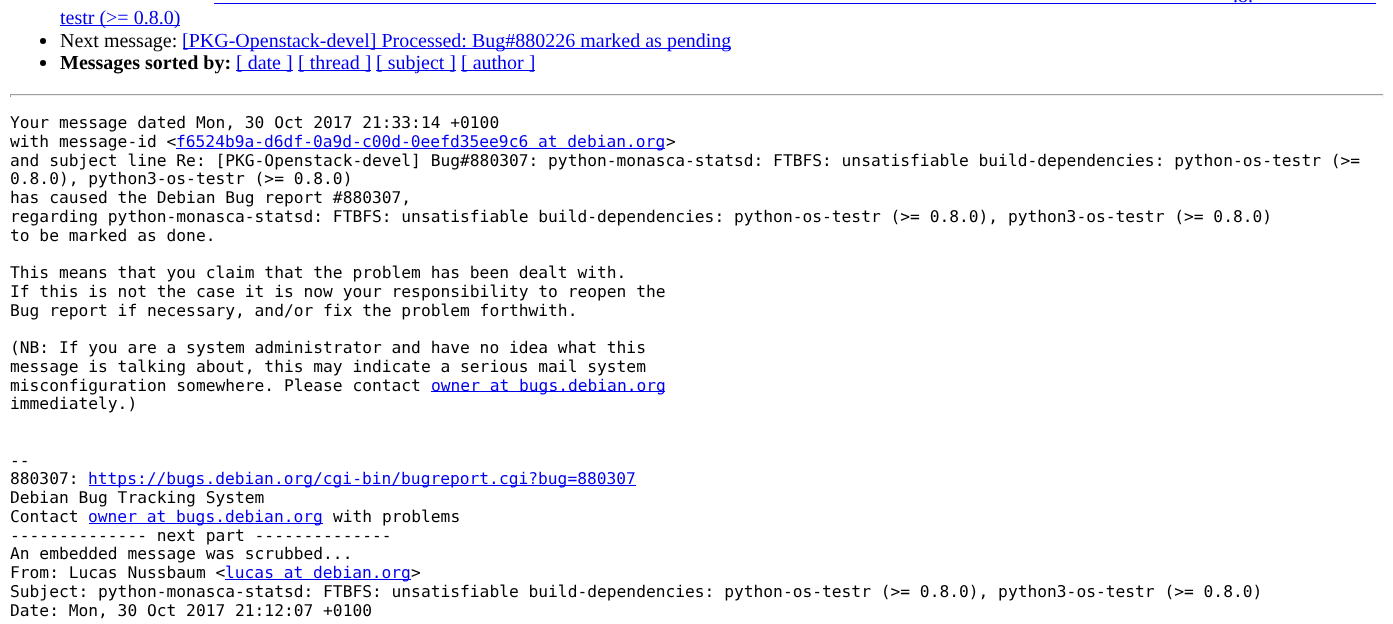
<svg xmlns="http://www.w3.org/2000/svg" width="1393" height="624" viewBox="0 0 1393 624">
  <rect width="100%" height="100%" fill="#fff"/>
  <path d="M214 3h1162v1H214z" fill="#00e"/>
  <path d="M60 25h120v1H60z" fill="#00e"/>
  <circle cx="43" cy="41" r="3" fill="#000"/>
  <path d="M183 48h548v1H183z" fill="#00e"/>
  <circle cx="43" cy="63" r="3" fill="#000"/>
  <path d="M236 70h57v1H236z" fill="#00e"/>
  <path d="M298 70h73v1H298z" fill="#00e"/>
  <path d="M376 70h80v1H376z" fill="#00e"/>
  <path d="M461 70h74v1H461z" fill="#00e"/>
  <path d="M10 94h1374v1H10z" fill="#9f9f9f"/>
  <path d="M1383 94h1v3H1383z" fill="#eee"/>
  <path d="M10 95h1374v1H10z" fill="#eee"/>
  <path d="M10 94h1v3H10z" fill="#9f9f9f"/>
  <path d="M176 148h489v1H176z" fill="#00e"/>
  <path d="M431 391h234v1H431z" fill="#00e"/>
  <path d="M89 485h547v1H89z" fill="#00e"/>
  <path d="M89 523h234v1H89z" fill="#00e"/>
  <path d="M225 579h186v1H225z" fill="#00e"/>
  <g font-family="Liberation Serif" font-size="20" fill="#00e">
    <text x="1233" y="2">.8.</text>
    <text x="60" y="24">testr (&gt;= 0.8.0)</text>
  </g>
  <text x="60" y="47" font-family="Liberation Serif" font-size="20" fill="#000">Next message:</text>
  <text x="182" y="47" font-family="Liberation Serif" font-size="20" fill="#00e">[PKG-Openstack-devel] Processed: Bug#880226 marked as pending</text>
  <text x="60" y="69" font-family="Liberation Serif" font-size="20" font-weight="bold" fill="#000">Messages sorted by:</text>
  <g font-family="Liberation Serif" font-size="20" fill="#00e">
    <text x="236" y="69">[ date ]</text>
    <text x="298" y="69">[ thread ]</text>
    <text x="376" y="69">[ subject ]</text>
    <text x="461" y="69">[ author ]</text>
  </g>
  <g font-family="DejaVu Sans Mono" font-size="16.25" fill="#000">
    <text x="10" y="128">Your message dated Mon, 30 Oct 2017 21:33:14 +0100</text>
    <text x="10" y="147">with message-id &lt;</text>
  </g>
  <text x="176" y="147" font-family="DejaVu Sans Mono" font-size="16.25" fill="#00e">f6524b9a-d6df-0a9d-c00d-0eefd35ee9c6 at debian.org</text>
  <g font-family="DejaVu Sans Mono" font-size="16.25" fill="#000">
    <text x="666" y="147">&gt;</text>
    <text x="10" y="166">and subject line Re: [PKG-Openstack-devel] Bug#880307: python-monasca-statsd: FTBFS: unsatisfiable build-dependencies: python-os-testr (&gt;=</text>
    <text x="10" y="184">0.8.0), python3-os-testr (&gt;= 0.8.0)</text>
    <text x="10" y="203">has caused the Debian Bug report #880307,</text>
    <text x="10" y="222">regarding python-monasca-statsd: FTBFS: unsatisfiable build-dependencies: python-os-testr (&gt;= 0.8.0), python3-os-testr (&gt;= 0.8.0)</text>
    <text x="10" y="241">to be marked as done.</text>
    <text x="10" y="278">This means that you claim that the problem has been dealt with.</text>
    <text x="10" y="297">If this is not the case it is now your responsibility to reopen the</text>
    <text x="10" y="316">Bug report if necessary, and/or fix the problem forthwith.</text>
    <text x="10" y="353">(NB: If you are a system administrator and have no idea what this</text>
    <text x="10" y="372">message is talking about, this may indicate a serious mail system</text>
    <text x="10" y="391">misconfiguration somewhere. Please contact</text>
  </g>
  <text x="431" y="391" font-family="DejaVu Sans Mono" font-size="16.25" fill="#00e">owner at bugs.debian.org</text>
  <g font-family="DejaVu Sans Mono" font-size="16.25" fill="#000">
    <text x="10" y="409">immediately.)</text>
    <text x="10" y="466">--</text>
    <text x="10" y="484">880307:</text>
  </g>
  <text x="88" y="484" font-family="DejaVu Sans Mono" font-size="16.25" fill="#00e">https://bugs.debian.org/cgi-bin/bugreport.cgi?bug=880307</text>
  <g font-family="DejaVu Sans Mono" font-size="16.25" fill="#000">
    <text x="10" y="503">Debian Bug Tracking System</text>
    <text x="10" y="522">Contact</text>
  </g>
  <text x="88" y="522" font-family="DejaVu Sans Mono" font-size="16.25" fill="#00e">owner at bugs.debian.org</text>
  <g font-family="DejaVu Sans Mono" font-size="16.25" fill="#000">
    <text x="333" y="522">with problems</text>
    <text x="10" y="541">-------------- next part --------------</text>
    <text x="10" y="559">An embedded message was scrubbed...</text>
    <text x="10" y="578">From: Lucas Nussbaum &lt;</text>
  </g>
  <text x="225" y="578" font-family="DejaVu Sans Mono" font-size="16.25" fill="#00e">lucas at debian.org</text>
  <g font-family="DejaVu Sans Mono" font-size="16.25" fill="#000">
    <text x="411" y="578">&gt;</text>
    <text x="10" y="597">Subject: python-monasca-statsd: FTBFS: unsatisfiable build-dependencies: python-os-testr (&gt;= 0.8.0), python3-os-testr (&gt;= 0.8.0)</text>
    <text x="10" y="616">Date: Mon, 30 Oct 2017 21:12:07 +0100</text>
  </g>
</svg>
